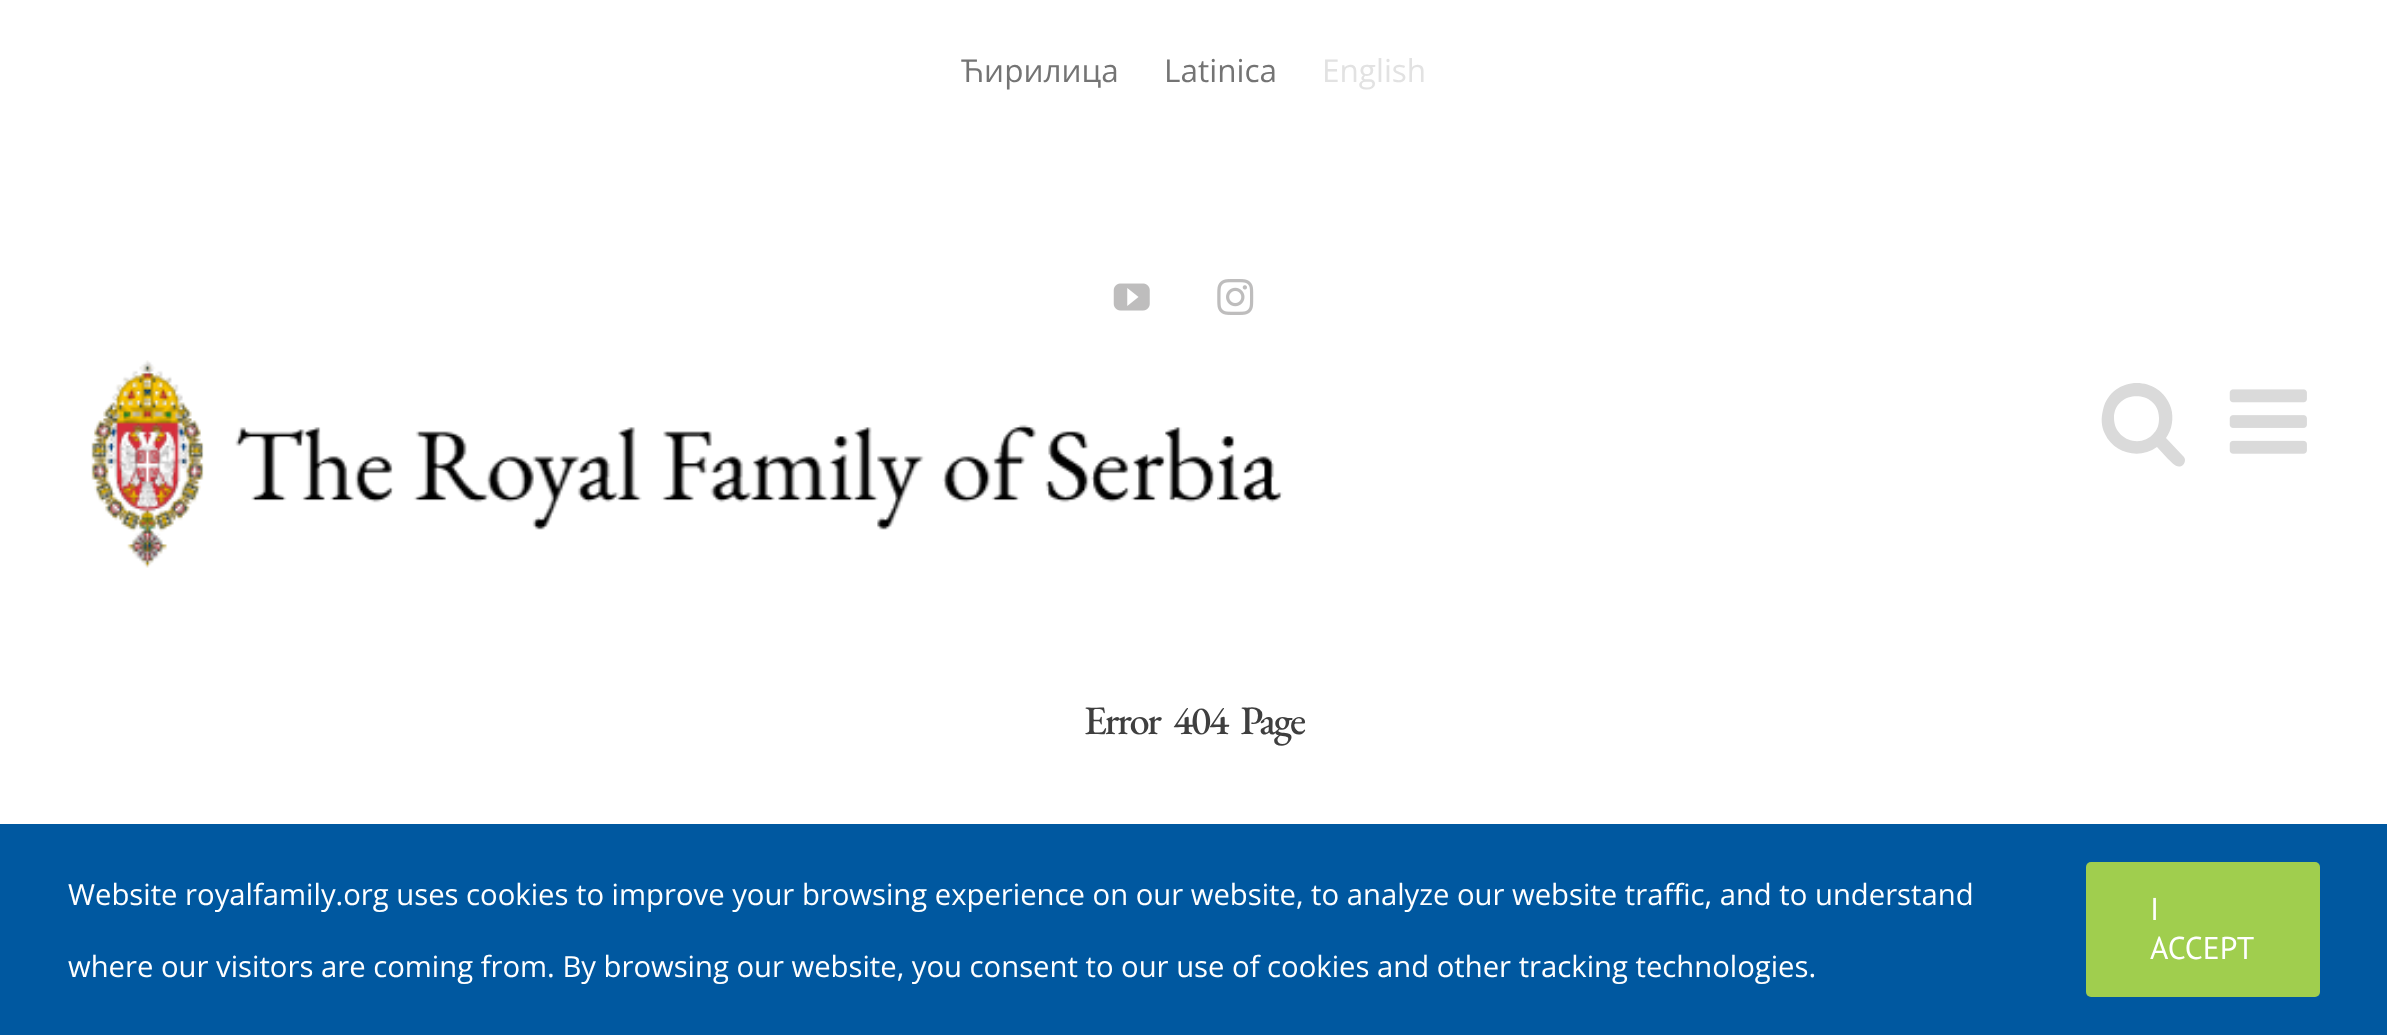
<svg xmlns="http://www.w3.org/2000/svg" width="2387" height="1035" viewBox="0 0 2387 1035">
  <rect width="100%" height="100%" fill="#fff"/>
  <image x="1113" y="283" width="37" height="28" href="img/1.png"/>
  <image x="1217" y="279" width="37" height="36" href="img/2.png"/>
  <image x="91" y="360" width="1192" height="208" href="img/3.png"/>
  <path d="M2159 418C2159 389 2114 389 2114 418C2114 440 2141 449 2154 433C2158 429 2159 424 2159 418ZM2185 460C2185 462 2184 464 2183 465C2177 470 2172 462 2168 459L2157 447C2139 460 2114 453 2105 434C2101 426 2101 418 2103 410C2111 375 2160 374 2171 408C2174 418 2172 430 2166 438L2183 456C2184 457 2185 458 2185 460Z" fill="#dadada"/>
  <image x="2229" y="389" width="78" height="65" href="img/4.png"/>
  <path d="M0 824h2387v211H0z" fill="#0058a0"/>
  <rect x="2086" y="862" width="234" height="135" rx="5" fill="#a0ce4e"/>
  <g font-family="Open Sans" font-size="31.5" fill="#747474">
    <text x="961" y="82">Ћирилица</text>
    <text x="1164" y="82">Latinica</text>
  </g>
  <text x="1322" y="82" font-family="Open Sans" font-size="31.5" fill="#e2e2e2">English</text>
  <text x="1084" y="734" word-spacing="7" font-family="EB Garamond" font-size="40.5" font-weight="500" letter-spacing="-2.25" fill="#3f3f3f">Error 404 Page</text>
  <g font-family="Open Sans" font-size="29.25" fill="#fff">
    <text x="68" y="905">Website royalfamily.org uses cookies to improve your browsing experience on our website, to analyze our website traffic, and to understand</text>
    <text x="68" y="977">where our visitors are coming from. By browsing our website, you consent to our use of cookies and other tracking technologies.</text>
  </g>
  <g font-family="PT Sans" font-size="31.5" fill="#fff">
    <text x="2150" y="920">I</text>
    <text x="2150" y="959">ACCEPT</text>
  </g>
</svg>
